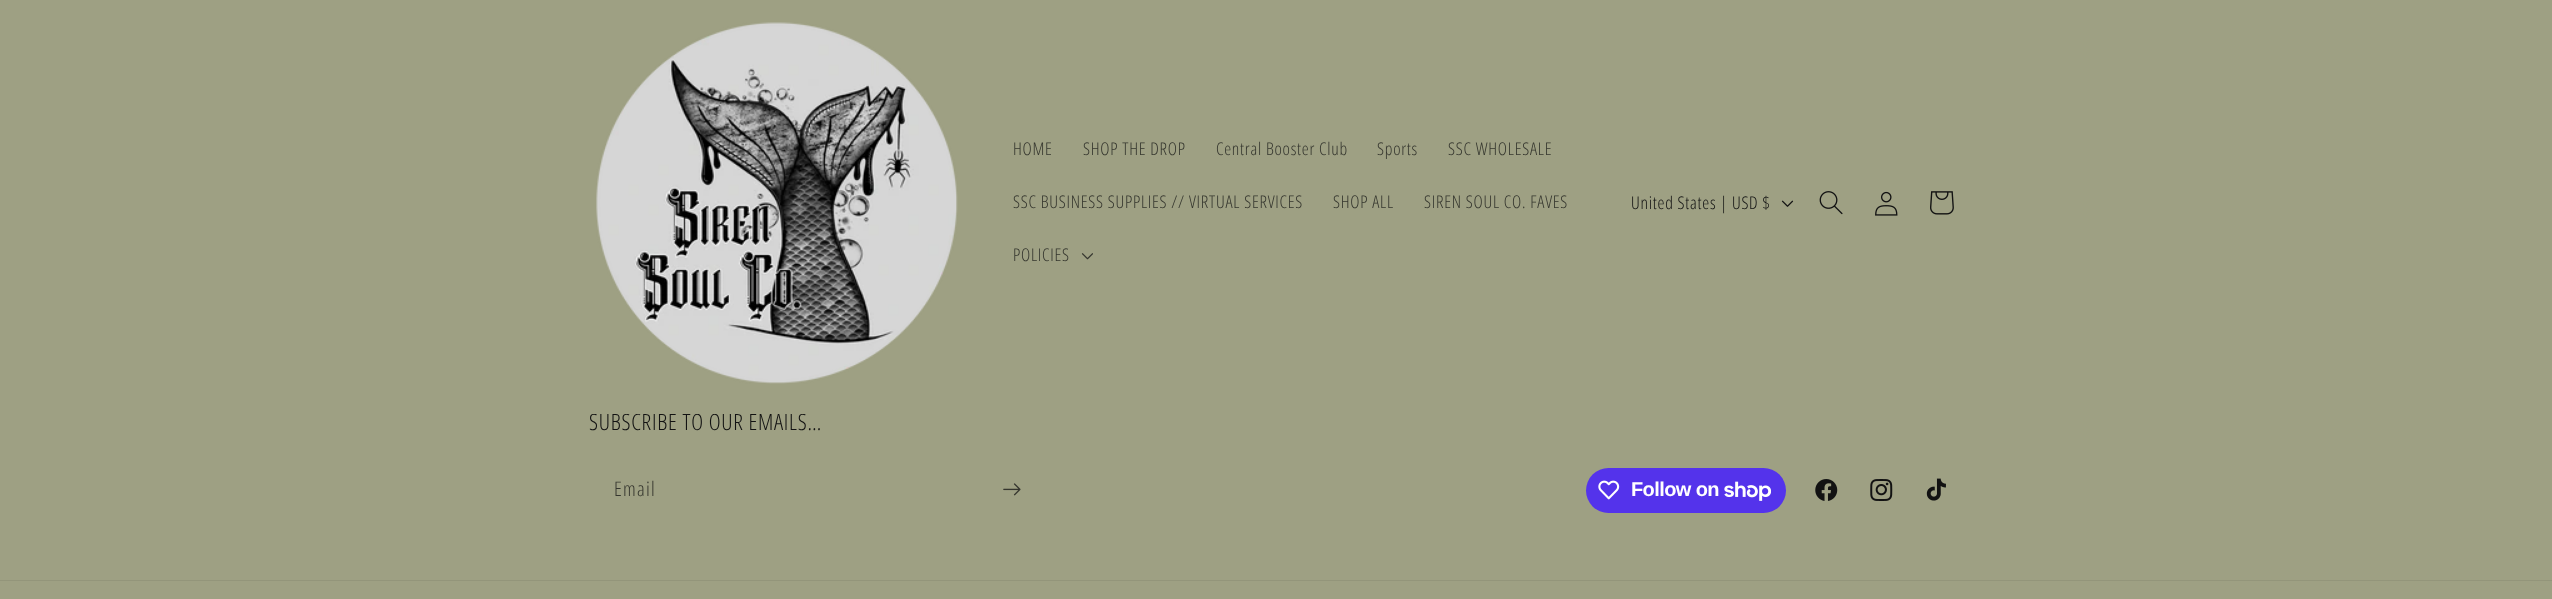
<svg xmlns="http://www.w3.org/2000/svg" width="2552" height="599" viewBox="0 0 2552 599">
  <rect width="100%" height="100%" fill="#9ea083"/>
  <image x="596" y="22" width="362" height="362" href="img/1.png"/>
  <image x="1081" y="253" width="12" height="7" href="img/2.png"/>
  <image x="1781" y="200" width="13" height="7" href="img/3.png"/>
  <image x="1819" y="191" width="24" height="24" href="img/4.png"/>
  <image x="1875" y="191" width="23" height="25" href="img/5.png"/>
  <image x="1930" y="191" width="24" height="24" href="img/6.png"/>
  <image x="1003" y="483" width="18" height="13" href="img/7.png"/>
  <rect x="1586" y="468" width="200" height="45" rx="22.5" fill="#5433eb"/>
  <image x="1598" y="480" width="22" height="20" href="img/8.png"/>
  <image x="1724" y="481" width="47" height="20" href="img/9.png"/>
  <image x="1815" y="479" width="23" height="22" href="img/10.png"/>
  <image x="1870" y="479" width="23" height="22" href="img/11.png"/>
  <image x="1926" y="478" width="20" height="23" href="img/12.png"/>
  <path d="M0 580h2552v1H0z" fill="#93957a"/>
  <g font-family="Open Sans Condensed" font-size="17.5" font-weight="300" letter-spacing="0.75" fill="#35362e">
    <text x="1013" y="155">HOME</text>
    <text x="1083" y="155">SHOP THE DROP</text>
    <text x="1216" y="155">Central Booster Club</text>
    <text x="1377" y="155">Sports</text>
    <text x="1448" y="155">SSC WHOLESALE</text>
    <text x="1013" y="208">SSC BUSINESS SUPPLIES // VIRTUAL SERVICES</text>
    <text x="1333" y="208">SHOP ALL</text>
    <text x="1424" y="208">SIREN SOUL CO. FAVES</text>
    <text x="1013" y="261">POLICIES</text>
  </g>
  <text x="1631" y="209" font-family="Open Sans Condensed" font-size="17.5" font-weight="300" letter-spacing="0.75" fill="#121212">United States | USD $</text>
  <text x="589" y="430" font-family="Open Sans Condensed" font-size="22.5" font-weight="300" letter-spacing="0.75" fill="#121212">SUBSCRIBE TO OUR EMAILS…</text>
  <path d="M592 413h212v1H592z" fill="#9ea083"/>
  <text x="614" y="496" font-family="Open Sans Condensed" font-size="20" font-weight="300" letter-spacing="1.25" fill="#35362e">Email</text>
  <text x="1631" y="496" font-family="Liberation Sans" font-size="20" font-weight="bold" letter-spacing="-0.6" fill="#fff">Follow on</text>
</svg>
